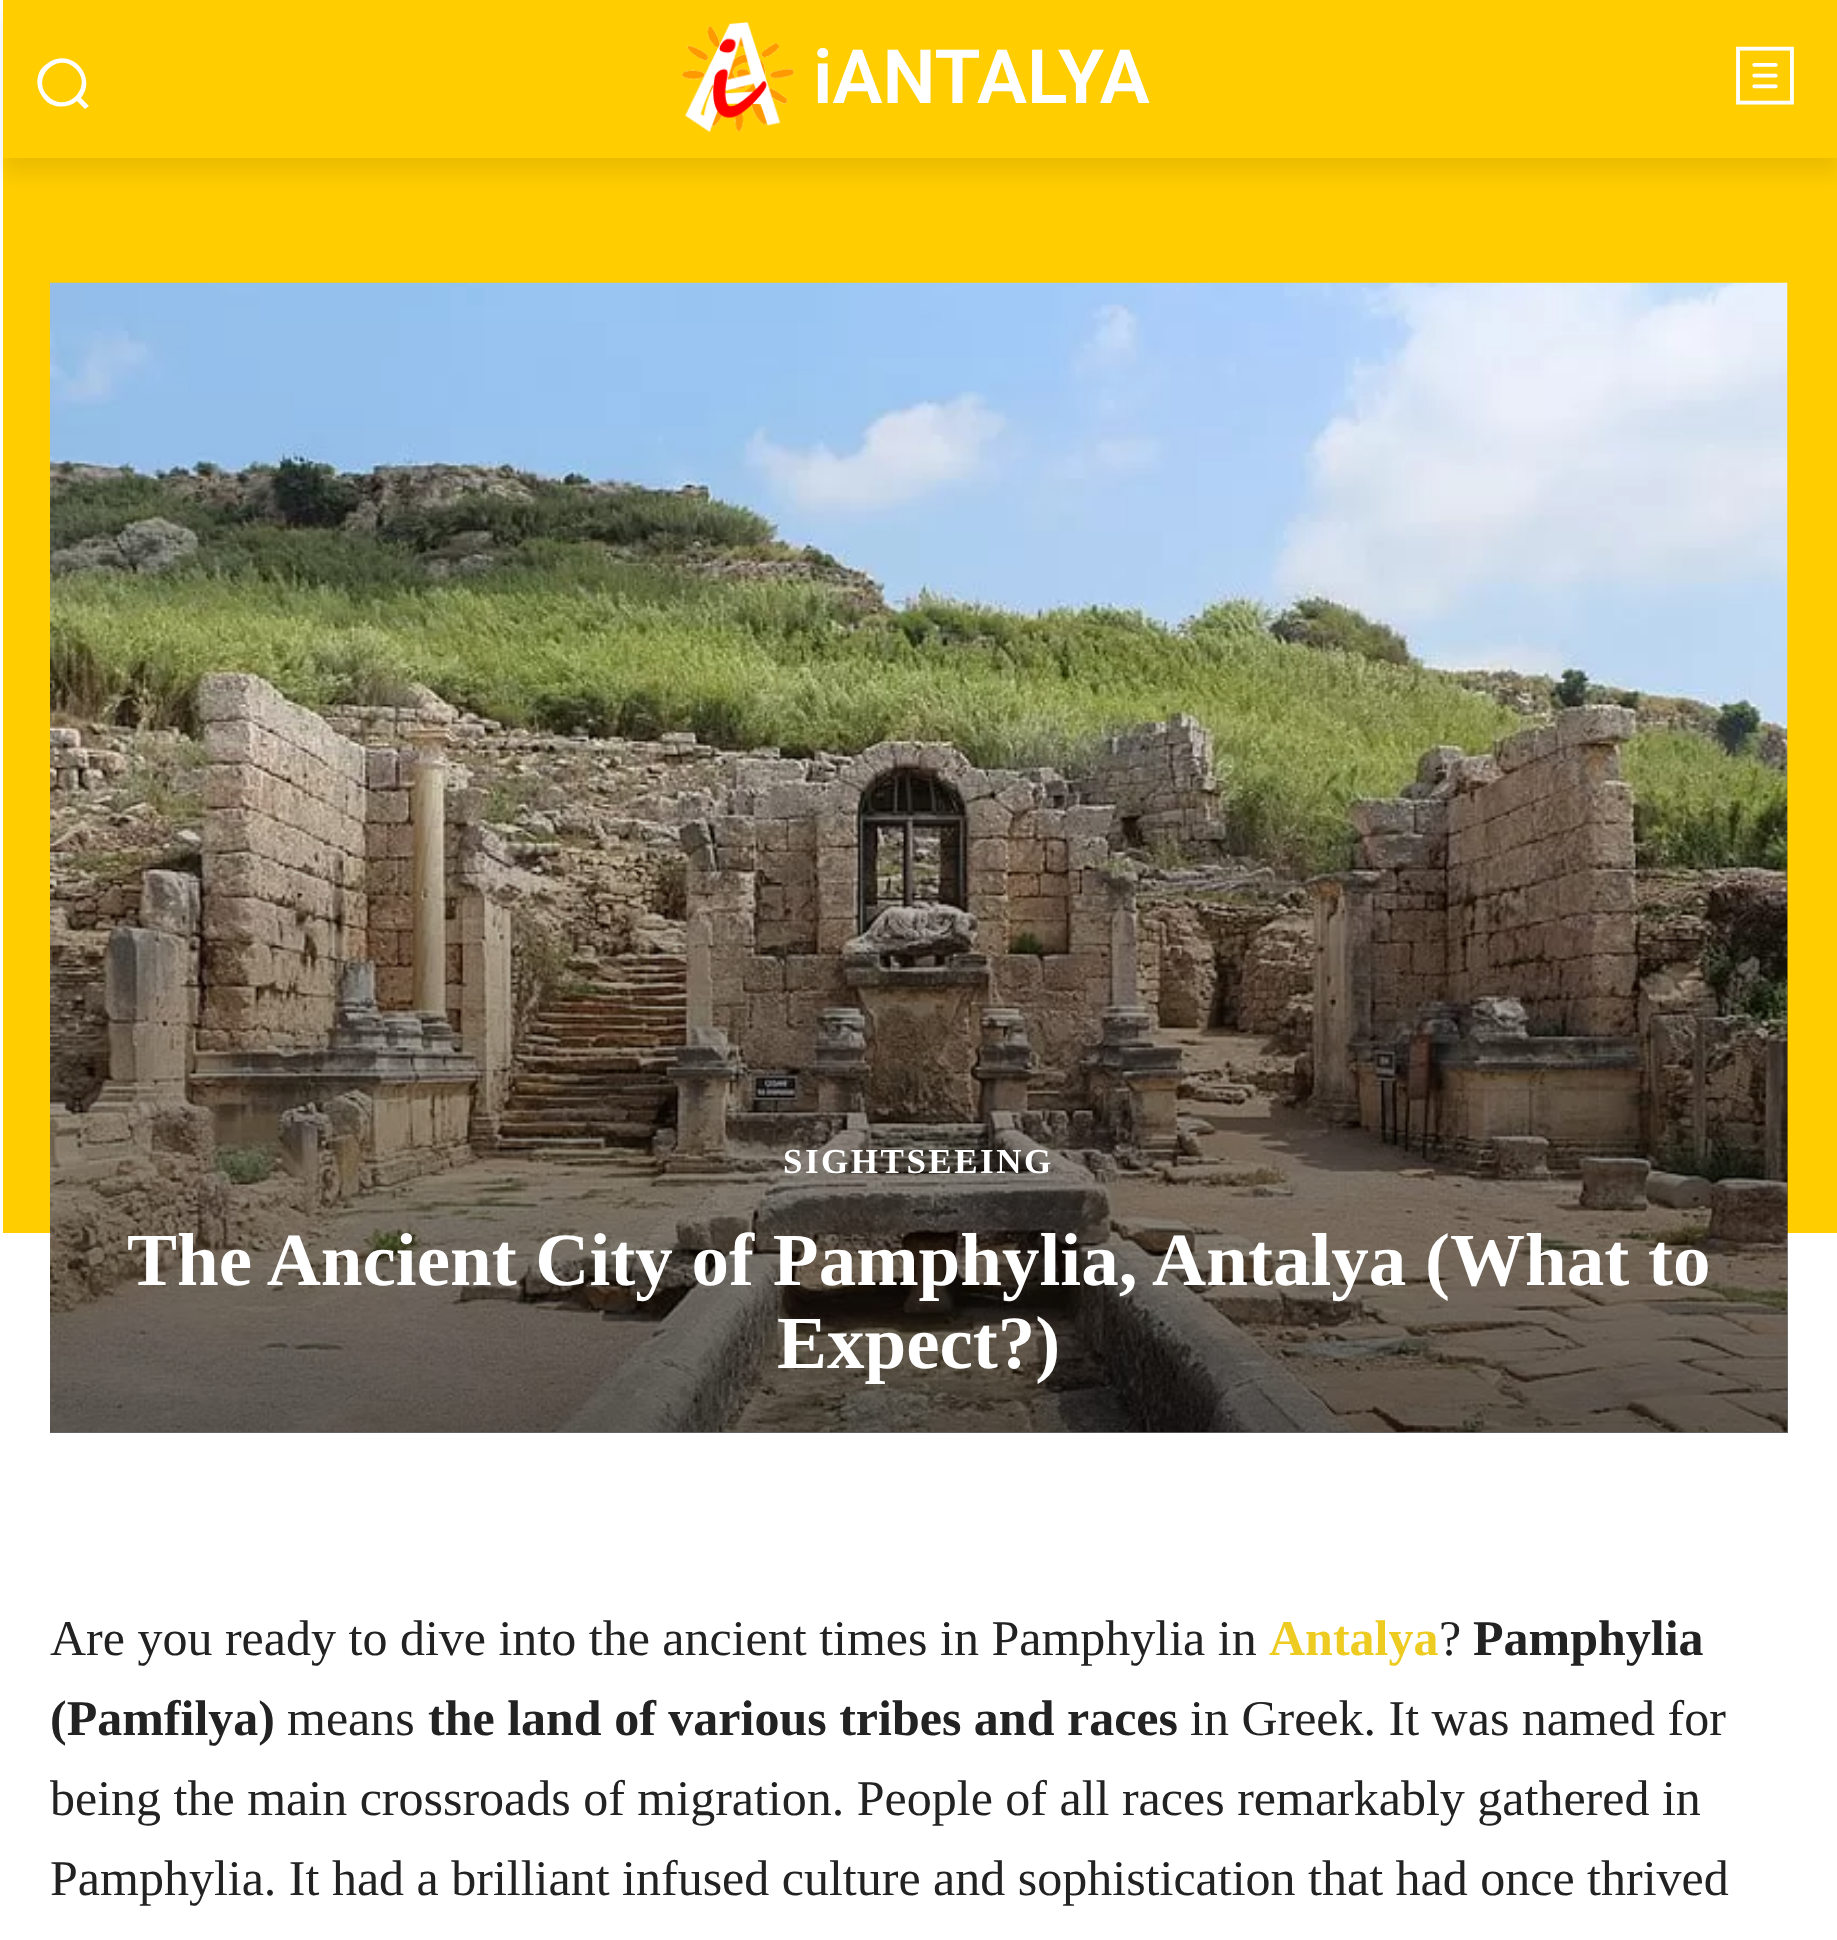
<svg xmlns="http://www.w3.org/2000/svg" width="1837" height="1940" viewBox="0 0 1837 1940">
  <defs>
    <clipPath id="clip1"><path d="M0 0H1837V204H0ZM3 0H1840V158H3Z" clip-rule="evenodd"/></clipPath>
    <linearGradient id="g1" gradientUnits="userSpaceOnUse" x1="919" y1="1433" x2="919" y2="283"><stop offset="0" stop-color="#000" stop-opacity="0.6"/><stop offset="0.42" stop-color="#000" stop-opacity="0.3"/><stop offset="0.61" stop-color="#000" stop-opacity="0"/><stop offset="1" stop-color="#000" stop-opacity="0"/></linearGradient>
  </defs>
  <rect width="100%" height="100%" fill="#fff"/>
  <path d="M3 0h1834v1233H3z" fill="#ffcd00"/>
  <path d="M89 106L81 98C97 78 74 49 51 61C46 64 41 68 39 73C36 81 37 89 42 96C49 108 66 110 77 101L85 109ZM48 96C30 78 58 50 76 69C94 87 66 115 48 96Z" fill="#fff"/>
  <image x="681" y="21" width="114" height="112" href="img/1.png"/>
  <image x="1736" y="46" width="58" height="59" href="img/2.png"/>
  <g clip-path="url(#clip1)">
    <path d="M3 15h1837v158H3z" fill="#00000014" filter="blur(10px)"/>
  </g>
  <image x="50" y="282" width="1738" height="1151" href="img/3.png"/>
  <path d="M50 747h1738v686H50z" fill="url(#g1)"/>
  <text x="813" y="103" font-family="Roboto" font-size="75" font-weight="600" fill="#fff">iANTALYA</text>
  <text x="783" y="1173" font-family="Liberation Serif" font-size="35" font-weight="bold" letter-spacing="2.5" fill="#fff">SIGHTSEEING</text>
  <g font-family="Liberation Serif" font-size="75" font-weight="bold" fill="#fff">
    <text x="127" y="1285">The Ancient City of Pamphylia, Antalya (What to</text>
    <text x="777" y="1368">Expect?)</text>
  </g>
  <text x="50" y="1655" font-family="Liberation Serif" font-size="50" fill="#222">Are you ready to dive into the ancient times in Pamphylia in</text>
  <text x="1269" y="1655" font-family="Liberation Serif" font-size="50" font-weight="bold" fill="#edcb21">Antalya</text>
  <text x="1439" y="1655" font-family="Liberation Serif" font-size="50" fill="#222">?</text>
  <g font-family="Liberation Serif" font-size="50" font-weight="bold" fill="#222">
    <text x="1473" y="1655">Pamphylia</text>
    <text x="50" y="1735">(Pamfilya)</text>
  </g>
  <text x="287" y="1735" font-family="Liberation Serif" font-size="50" fill="#222">means</text>
  <text x="428" y="1735" font-family="Liberation Serif" font-size="50" font-weight="bold" fill="#222">the land of various tribes and races</text>
  <g font-family="Liberation Serif" font-size="50" fill="#222">
    <text x="1190" y="1735">in Greek. It was named for</text>
    <text x="50" y="1815">being the main crossroads of migration. People of all races remarkably gathered in</text>
    <text x="50" y="1895">Pamphylia. It had a brilliant infused culture and sophistication that had once thrived</text>
  </g>
</svg>
